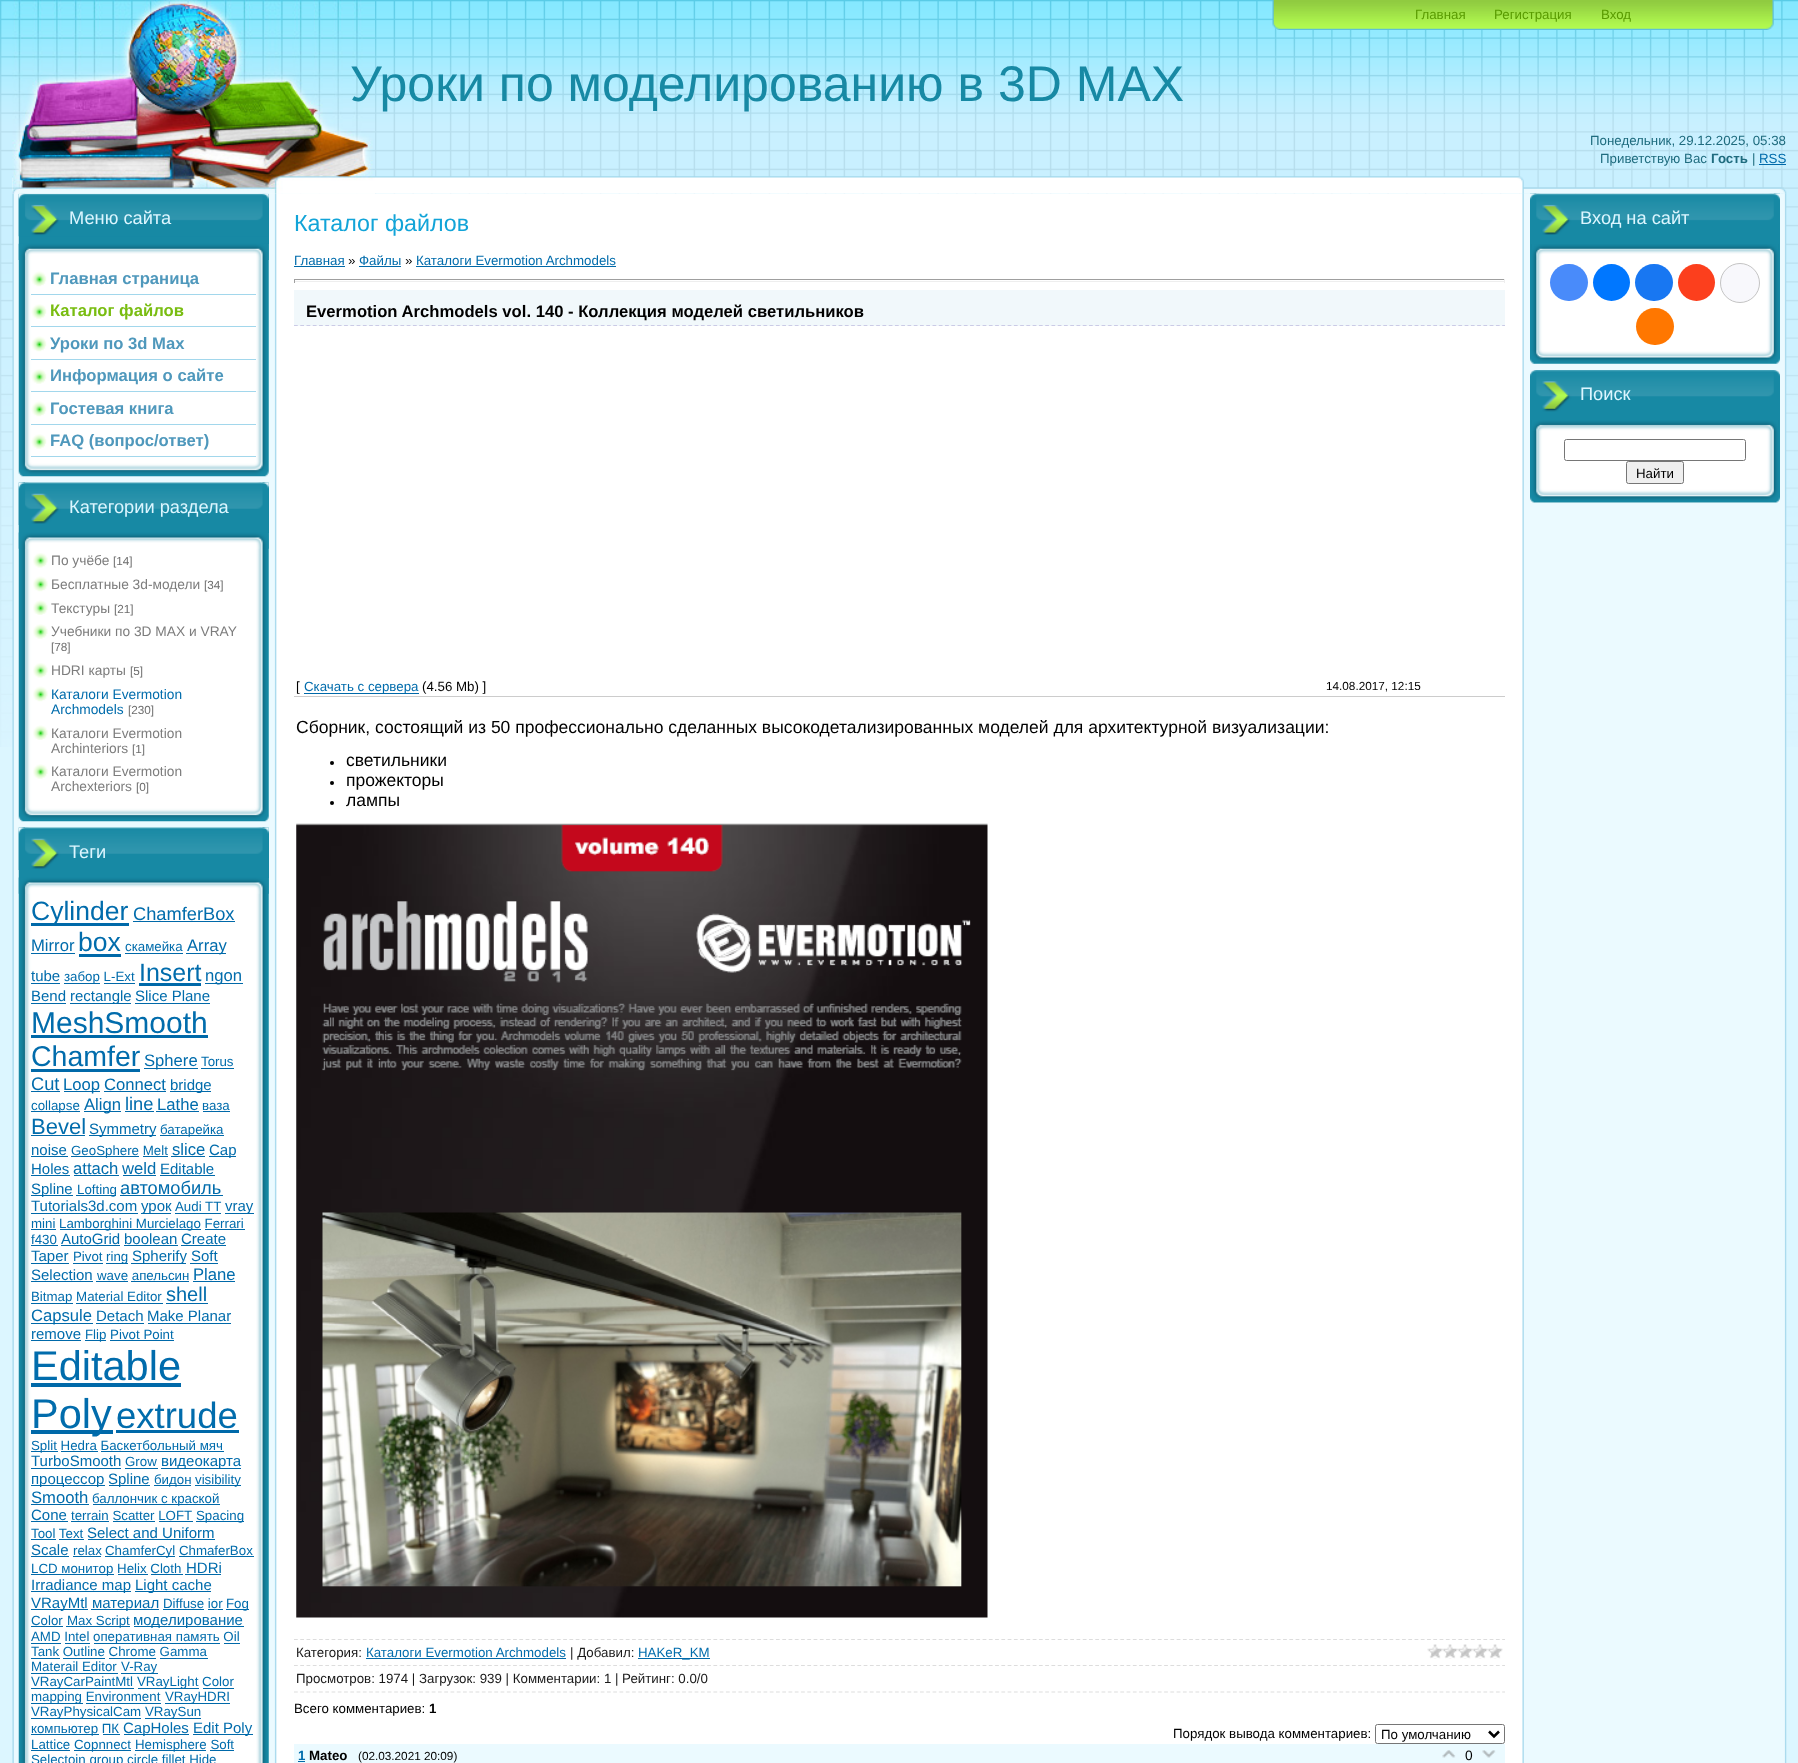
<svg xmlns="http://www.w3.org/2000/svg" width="1798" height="1763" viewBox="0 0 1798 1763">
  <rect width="100%" height="100%" fill="#dcf6ff"/>
  <image x="0" y="0" width="1798" height="747" href="img/1.png"/>
  <image x="12" y="176" width="1775" height="18" href="img/2.png"/>
  <image x="12" y="193" width="270" height="1570" href="img/5.png"/>
  <image x="18" y="193" width="251" height="284" href="img/6.png"/>
  <path d="M20 194h249v50H20z" fill="#1789a4"/>
  <image x="18" y="193" width="251" height="44" href="img/7.png"/>
  <image x="12" y="0" width="363" height="194" href="img/3.png"/>
  <image x="1272" y="0" width="502" height="30" href="img/4.png"/>
  <path d="M1759 164h27v1H1759z" fill="#0069a9"/>
  <image x="18" y="243" width="251" height="17" href="img/8.png"/>
  <image x="31" y="271" width="16" height="16" href="img/9.png"/>
  <path d="M31 294h225v1H31z" fill="#a2d7ec"/>
  <image x="31" y="304" width="16" height="15" href="img/10.png"/>
  <path d="M31 326h225v1H31z" fill="#a2d7ec"/>
  <image x="31" y="336" width="16" height="16" href="img/9.png"/>
  <path d="M31 359h225v1H31z" fill="#a2d7ec"/>
  <image x="31" y="369" width="16" height="15" href="img/10.png"/>
  <path d="M31 391h225v1H31z" fill="#a2d7ec"/>
  <image x="31" y="401" width="16" height="16" href="img/9.png"/>
  <path d="M31 424h225v1H31z" fill="#a2d7ec"/>
  <image x="31" y="434" width="16" height="15" href="img/10.png"/>
  <path d="M31 456h225v1H31z" fill="#a2d7ec"/>
  <image x="18" y="482" width="251" height="340" href="img/11.png"/>
  <path d="M20 483h249v50H20z" fill="#1789a4"/>
  <image x="18" y="482" width="251" height="43" href="img/12.png"/>
  <image x="18" y="532" width="251" height="17" href="img/13.png"/>
  <image x="33" y="553" width="15" height="15" href="img/14.png"/>
  <image x="33" y="576" width="15" height="16" href="img/15.png"/>
  <image x="33" y="600" width="15" height="15" href="img/16.png"/>
  <image x="33" y="624" width="15" height="15" href="img/17.png"/>
  <image x="33" y="663" width="15" height="15" href="img/14.png"/>
  <image x="33" y="686" width="15" height="16" href="img/15.png"/>
  <image x="33" y="725" width="15" height="15" href="img/16.png"/>
  <image x="33" y="764" width="15" height="15" href="img/17.png"/>
  <image x="18" y="827" width="251" height="936" href="img/18.png"/>
  <path d="M20 828h249v50H20z" fill="#1789a4"/>
  <image x="18" y="827" width="251" height="43" href="img/12.png"/>
  <image x="18" y="877" width="251" height="17" href="img/13.png"/>
  <path d="M31 923h98v3H31z" fill="#0069a9"/>
  <path d="M133 921h102v1H133z" fill="#0069a9"/>
  <path d="M31 953h44v1H31z" fill="#0069a9"/>
  <path d="M79 954h42v3H79z" fill="#0069a9"/>
  <path d="M125 953h58v1H125z" fill="#0069a9"/>
  <path d="M186 953h40v1H186z" fill="#0069a9"/>
  <path d="M31 983h29v1H31z" fill="#0069a9"/>
  <path d="M64 983h36v1H64z" fill="#0069a9"/>
  <path d="M139 983h62v3H139z" fill="#0069a9"/>
  <path d="M205 983h38v1H205z" fill="#0069a9"/>
  <path d="M31 1003h35v1H31z" fill="#0069a9"/>
  <path d="M70 1003h61v1H70z" fill="#0069a9"/>
  <path d="M135 1003h75v1H135z" fill="#0069a9"/>
  <path d="M31 1035h177v3H31z" fill="#0069a9"/>
  <path d="M31 1069h109v3H31z" fill="#0069a9"/>
  <path d="M144 1068h54v1H144z" fill="#0069a9"/>
  <path d="M201 1068h33v1H201z" fill="#0069a9"/>
  <path d="M31 1091h29v1H31z" fill="#0069a9"/>
  <path d="M64 1091h36v1H64z" fill="#0069a9"/>
  <path d="M104 1091h62v1H104z" fill="#0069a9"/>
  <path d="M170 1091h41v1H170z" fill="#0069a9"/>
  <path d="M31 1111h49v1H31z" fill="#0069a9"/>
  <path d="M84 1111h37v1H84z" fill="#0069a9"/>
  <path d="M125 1111h29v1H125z" fill="#0069a9"/>
  <path d="M156 1111h43v1H156z" fill="#0069a9"/>
  <path d="M203 1111h27v1H203z" fill="#0069a9"/>
  <path d="M31 1135h54v1H31z" fill="#0069a9"/>
  <path d="M89 1135h67v1H89z" fill="#0069a9"/>
  <path d="M160 1135h64v1H160z" fill="#0069a9"/>
  <path d="M31 1156h37v1H31z" fill="#0069a9"/>
  <path d="M71 1156h68v1H71z" fill="#0069a9"/>
  <path d="M171 1156h34v1H171z" fill="#0069a9"/>
  <path d="M209 1156h27v1H209z" fill="#0069a9"/>
  <path d="M31 1175h39v1H31z" fill="#0069a9"/>
  <path d="M74 1175h45v1H74z" fill="#0069a9"/>
  <path d="M123 1175h33v1H123z" fill="#0069a9"/>
  <path d="M160 1175h55v1H160z" fill="#0069a9"/>
  <path d="M31 1195h42v1H31z" fill="#0069a9"/>
  <path d="M76 1195h40v1H76z" fill="#0069a9"/>
  <path d="M120 1195h103v1H120z" fill="#0069a9"/>
  <path d="M31 1213h107v1H31z" fill="#0069a9"/>
  <path d="M141 1213h30v1H141z" fill="#0069a9"/>
  <path d="M175 1213h46v1H175z" fill="#0069a9"/>
  <path d="M225 1213h29v1H225z" fill="#0069a9"/>
  <path d="M31 1229h25v1H31z" fill="#0069a9"/>
  <path d="M60 1229h141v1H60z" fill="#0069a9"/>
  <path d="M31 1245h27v1H31z" fill="#0069a9"/>
  <path d="M61 1245h59v1H61z" fill="#0069a9"/>
  <path d="M124 1245h54v1H124z" fill="#0069a9"/>
  <path d="M181 1245h45v1H181z" fill="#0069a9"/>
  <path d="M31 1263h38v1H31z" fill="#0069a9"/>
  <path d="M73 1263h30v1H73z" fill="#0069a9"/>
  <path d="M106 1263h22v1H106z" fill="#0069a9"/>
  <path d="M131 1263h55v1H131z" fill="#0069a9"/>
  <path d="M190 1263h28v1H190z" fill="#0069a9"/>
  <path d="M31 1281h62v1H31z" fill="#0069a9"/>
  <path d="M96 1281h32v1H96z" fill="#0069a9"/>
  <path d="M131 1281h58v1H131z" fill="#0069a9"/>
  <path d="M193 1281h42v1H193z" fill="#0069a9"/>
  <path d="M31 1303h42v1H31z" fill="#0069a9"/>
  <path d="M166 1303h42v1H166z" fill="#0069a9"/>
  <path d="M31 1323h62v1H31z" fill="#0069a9"/>
  <path d="M96 1323h48v1H96z" fill="#0069a9"/>
  <path d="M148 1323h83v1H148z" fill="#0069a9"/>
  <path d="M31 1340h50v1H31z" fill="#0069a9"/>
  <path d="M85 1340h21v1H85z" fill="#0069a9"/>
  <path d="M31 1383h150v4H31z" fill="#0069a9"/>
  <path d="M31 1430h82v4H31z" fill="#0069a9"/>
  <path d="M116 1430h123v3H116z" fill="#0069a9"/>
  <path d="M31 1451h27v1H31z" fill="#0069a9"/>
  <path d="M31 1468h90v1H31z" fill="#0069a9"/>
  <path d="M125 1468h33v1H125z" fill="#0069a9"/>
  <path d="M161 1468h80v1H161z" fill="#0069a9"/>
  <path d="M31 1485h74v1H31z" fill="#0069a9"/>
  <path d="M109 1485h41v1H109z" fill="#0069a9"/>
  <path d="M154 1485h37v1H154z" fill="#0069a9"/>
  <path d="M195 1485h46v1H195z" fill="#0069a9"/>
  <path d="M31 1504h58v1H31z" fill="#0069a9"/>
  <path d="M93 1504h127v1H93z" fill="#0069a9"/>
  <path d="M31 1521h37v1H31z" fill="#0069a9"/>
  <path d="M71 1521h38v1H71z" fill="#0069a9"/>
  <path d="M113 1521h42v1H113z" fill="#0069a9"/>
  <path d="M159 1521h34v1H159z" fill="#0069a9"/>
  <path d="M196 1521h48v1H196z" fill="#0069a9"/>
  <path d="M31 1539h25v1H31z" fill="#0069a9"/>
  <path d="M59 1539h25v1H59z" fill="#0069a9"/>
  <path d="M88 1539h127v1H88z" fill="#0069a9"/>
  <path d="M31 1556h38v1H31z" fill="#0069a9"/>
  <path d="M73 1556h28v1H73z" fill="#0069a9"/>
  <path d="M105 1556h70v1H105z" fill="#0069a9"/>
  <path d="M31 1574h83v1H31z" fill="#0069a9"/>
  <path d="M185 1574h36v1H185z" fill="#0069a9"/>
  <path d="M31 1591h100v1H31z" fill="#0069a9"/>
  <path d="M135 1591h76v1H135z" fill="#0069a9"/>
  <path d="M31 1609h57v1H31z" fill="#0069a9"/>
  <path d="M91 1609h68v1H91z" fill="#0069a9"/>
  <path d="M163 1609h41v1H163z" fill="#0069a9"/>
  <path d="M208 1609h15v1H208z" fill="#0069a9"/>
  <path d="M226 1609h23v1H226z" fill="#0069a9"/>
  <path d="M31 1626h32v1H31z" fill="#0069a9"/>
  <path d="M66 1626h64v1H66z" fill="#0069a9"/>
  <path d="M134 1626h110v1H134z" fill="#0069a9"/>
  <path d="M31 1643h30v1H31z" fill="#0069a9"/>
  <path d="M65 1643h25v1H65z" fill="#0069a9"/>
  <path d="M94 1643h126v1H94z" fill="#0069a9"/>
  <path d="M31 1658h29v1H31z" fill="#0069a9"/>
  <path d="M63 1658h42v1H63z" fill="#0069a9"/>
  <path d="M109 1658h47v1H109z" fill="#0069a9"/>
  <path d="M160 1658h48v1H160z" fill="#0069a9"/>
  <path d="M31 1673h87v1H31z" fill="#0069a9"/>
  <path d="M121 1673h37v1H121z" fill="#0069a9"/>
  <path d="M31 1688h103v1H31z" fill="#0069a9"/>
  <path d="M138 1688h61v1H138z" fill="#0069a9"/>
  <path d="M31 1703h52v1H31z" fill="#0069a9"/>
  <path d="M165 1703h65v1H165z" fill="#0069a9"/>
  <path d="M31 1718h110v1H31z" fill="#0069a9"/>
  <path d="M145 1718h56v1H145z" fill="#0069a9"/>
  <path d="M31 1734h68v1H31z" fill="#0069a9"/>
  <path d="M124 1734h65v1H124z" fill="#0069a9"/>
  <path d="M193 1734h60v1H193z" fill="#0069a9"/>
  <path d="M31 1750h39v1H31z" fill="#0069a9"/>
  <path d="M74 1750h57v1H74z" fill="#0069a9"/>
  <path d="M135 1750h71v1H135z" fill="#0069a9"/>
  <path d="M281 194h1237v1569H281z" fill="#fff"/>
  <path d="M294 266h51v1H294z" fill="#0069a9"/>
  <path d="M359 266h42v1H359z" fill="#0069a9"/>
  <path d="M416 266h200v1H416z" fill="#0069a9"/>
  <path d="M294 279h1211v1H294z" fill="#9f9f9f"/>
  <path d="M1504 279h1v4H1504z" fill="#eee"/>
  <path d="M294 281h1211v1H294z" fill="#eee"/>
  <path d="M294 279h1v4H294z" fill="#9f9f9f"/>
  <path d="M294 290h1211v36H294z" fill="#f1f8fb"/>
  <path d="M294 325.5H1505" fill="none" stroke="#cbcbe6" stroke-width="1.2" stroke-dasharray="3.75 2.51"/>
  <path d="M304 693h115v1H304z" fill="#0069a9"/>
  <path d="M294 696h1211v1H294z" fill="#ccc"/>
  <circle cx="332" cy="763" r="2" fill="#000"/>
  <circle cx="332" cy="783" r="2" fill="#000"/>
  <circle cx="332" cy="803" r="2" fill="#000"/>
  <image x="296" y="823" width="692" height="795" href="img/19.png"/>
  <path d="M294 1639.5H1505" fill="none" stroke="#ddd" stroke-width="1.2" stroke-dasharray="3.75 2.51"/>
  <path d="M294 1665.5H1505" fill="none" stroke="#ddd" stroke-width="1.2" stroke-dasharray="3.75 2.51"/>
  <path d="M366 1658h200v1H366z" fill="#0069a9"/>
  <path d="M638 1658h72v1H638z" fill="#0069a9"/>
  <image x="1427" y="1644" width="76" height="15" href="img/20.png"/>
  <path d="M294 1692H1505" fill="none" stroke="#ddd" stroke-width="1.2" stroke-dasharray="3.75 2.51"/>
  <rect x="1375.5" y="1724.5" width="129" height="19" rx="2" fill="none" stroke="#767676"/>
  <path d="M1489 1731.5L1494 1736.5L1499 1731.5" fill="none" stroke="#000" stroke-width="2.5"/>
  <path d="M294 1744h1211v19H294z" fill="#ebfaff"/>
  <path d="M298 1761h7v1H298z" fill="#0069a9"/>
  <image x="1442" y="1750" width="14" height="8" href="img/21.png"/>
  <image x="1482" y="1750" width="14" height="8" href="img/22.png"/>
  <image x="1518" y="193" width="269" height="1570" href="img/23.png"/>
  <image x="1530" y="193" width="250" height="171" href="img/24.png"/>
  <path d="M1531 235h248v9H1531z" fill="#1789a4"/>
  <image x="1530" y="193" width="250" height="42" href="img/25.png"/>
  <image x="1532" y="244" width="246" height="16" href="img/26.png"/>
  <rect x="1550" y="264" width="38" height="37" rx="18.5" fill="#498bfa"/>
  <circle cx="1611.5" cy="282.5" r="18.5" fill="#07f"/>
  <rect x="1635" y="264" width="38" height="37" rx="18.5" fill="#1877f2"/>
  <circle cx="1696.5" cy="282.5" r="18.5" fill="#fc3f1d"/>
  <circle cx="1740" cy="283" r="19.5" fill="#f8f8fc" stroke="#c4c4c4"/>
  <rect x="1636" y="308" width="38" height="37" rx="18.5" fill="#f70"/>
  <path d="M1530 502h250v1H1530z" fill="#fff"/>
  <image x="1530" y="420" width="250" height="83" href="img/27.png"/>
  <path d="M1530 412h250v8H1530z" fill="#1789a4"/>
  <image x="1530" y="370" width="250" height="42" href="img/28.png"/>
  <image x="1532" y="420" width="246" height="11" href="img/29.png"/>
  <rect x="1564.5" y="439.5" width="181" height="21" rx="2" fill="none" stroke="#767676"/>
  <rect x="1626.5" y="461.5" width="57" height="22" rx="2" fill="#efefef" stroke="#767676"/>
  <g font-family="Liberation Sans" font-size="13.3" fill="#599b00">
    <text x="1415" y="19">Главная</text>
    <text x="1494" y="19">Регистрация</text>
    <text x="1601" y="19">Вход</text>
  </g>
  <text x="350" y="101" font-family="Liberation Sans" font-size="50" fill="#1789a4">Уроки по моделированию в 3D MAX</text>
  <g font-family="Liberation Sans" font-size="13.3" fill="#1f6c7f">
    <text x="1590" y="145">Понедельник, 29.12.2025, 05:38</text>
    <text x="1600" y="163">Приветствую Вас</text>
  </g>
  <text x="1711" y="163" font-family="Liberation Sans" font-size="13.3" font-weight="bold" fill="#1f6c7f">Гость</text>
  <text x="1752" y="163" font-family="Liberation Sans" font-size="13.3" fill="#1f6c7f">|</text>
  <text x="1759" y="163" font-family="Liberation Sans" font-size="13.3" fill="#016cac">RSS</text>
  <text x="69" y="224" font-family="Liberation Sans" font-size="18.25" fill="#dcf6ff">Меню сайта</text>
  <text x="50" y="284" font-family="Liberation Sans" font-size="16.65" font-weight="bold" fill="#4f98bc">Главная страница</text>
  <text x="50" y="316" font-family="Liberation Sans" font-size="16.65" font-weight="bold" fill="#79bd11">Каталог файлов</text>
  <g font-family="Liberation Sans" font-size="16.65" font-weight="bold" fill="#4f98bc">
    <text x="50" y="349">Уроки по 3d Max</text>
    <text x="50" y="381">Информация о сайте</text>
    <text x="50" y="414">Гостевая книга</text>
    <text x="50" y="446">FAQ (вопрос/ответ)</text>
  </g>
  <text x="69" y="513" font-family="Liberation Sans" font-size="18.25" fill="#dcf6ff">Категории раздела</text>
  <text x="51" y="565" font-family="Liberation Sans" font-size="13.75" fill="#7d7d7d">По учёбе</text>
  <text x="113" y="565" font-family="Liberation Sans" font-size="11.75" fill="#6e6e6e">[14]</text>
  <text x="51" y="589" font-family="Liberation Sans" font-size="13.75" fill="#7d7d7d">Бесплатные 3d-модели</text>
  <text x="204" y="589" font-family="Liberation Sans" font-size="11.75" fill="#6e6e6e">[34]</text>
  <text x="51" y="613" font-family="Liberation Sans" font-size="13.75" fill="#7d7d7d">Текстуры</text>
  <text x="114" y="613" font-family="Liberation Sans" font-size="11.75" fill="#6e6e6e">[21]</text>
  <text x="51" y="636" font-family="Liberation Sans" font-size="13.75" fill="#7d7d7d">Учебники по 3D MAX и VRAY</text>
  <text x="51" y="651" font-family="Liberation Sans" font-size="11.75" fill="#6e6e6e">[78]</text>
  <text x="51" y="675" font-family="Liberation Sans" font-size="13.75" fill="#7d7d7d">HDRI карты</text>
  <text x="130" y="675" font-family="Liberation Sans" font-size="11.75" fill="#6e6e6e">[5]</text>
  <g font-family="Liberation Sans" font-size="13.75" fill="#016cac">
    <text x="51" y="699">Каталоги Evermotion</text>
    <text x="51" y="714">Archmodels</text>
  </g>
  <text x="128" y="714" font-family="Liberation Sans" font-size="11.75" fill="#6e6e6e">[230]</text>
  <g font-family="Liberation Sans" font-size="13.75" fill="#7d7d7d">
    <text x="51" y="738">Каталоги Evermotion</text>
    <text x="51" y="753">Archinteriors</text>
  </g>
  <text x="132" y="753" font-family="Liberation Sans" font-size="11.75" fill="#6e6e6e">[1]</text>
  <g font-family="Liberation Sans" font-size="13.75" fill="#7d7d7d">
    <text x="51" y="776">Каталоги Evermotion</text>
    <text x="51" y="791">Archexteriors</text>
  </g>
  <text x="136" y="791" font-family="Liberation Sans" font-size="11.75" fill="#6e6e6e">[0]</text>
  <text x="69" y="858" font-family="Liberation Sans" font-size="18.25" fill="#dcf6ff">Теги</text>
  <text x="31" y="920" font-family="Liberation Sans" font-size="26.5" fill="#016cac">Cylinder</text>
  <text x="133" y="920" font-family="Liberation Sans" font-size="18.25" fill="#016cac">ChamferBox</text>
  <text x="31" y="951" font-family="Liberation Sans" font-size="16.65" fill="#016cac">Mirror</text>
  <text x="78" y="951" font-family="Liberation Sans" font-size="26.5" fill="#016cac">box</text>
  <text x="125" y="951" font-family="Liberation Sans" font-size="13.3" fill="#016cac">скамейка</text>
  <text x="187" y="951" font-family="Liberation Sans" font-size="16.65" fill="#016cac">Array</text>
  <text x="31" y="981" font-family="Liberation Sans" font-size="15" fill="#016cac">tube</text>
  <text x="64" y="981" font-family="Liberation Sans" font-size="13.3" fill="#016cac">забор L-Ext</text>
  <path d="M104 983h31v1H104z" fill="#0069a9"/>
  <text x="139" y="981" font-family="Liberation Sans" font-size="25" fill="#016cac">Insert</text>
  <text x="205" y="981" font-family="Liberation Sans" font-size="16.65" fill="#016cac">ngon</text>
  <g font-family="Liberation Sans" font-size="15" fill="#016cac">
    <text x="31" y="1001">Bend</text>
    <text x="70" y="1001">rectangle</text>
    <text x="135" y="1001">Slice Plane</text>
  </g>
  <text x="31" y="1033" font-family="Liberation Sans" font-size="30" fill="#016cac">MeshSmooth</text>
  <text x="31" y="1066" font-family="Liberation Sans" font-size="28.5" fill="#016cac">Chamfer</text>
  <text x="144" y="1066" font-family="Liberation Sans" font-size="16.65" fill="#016cac">Sphere</text>
  <text x="201" y="1066" font-family="Liberation Sans" font-size="13.3" fill="#016cac">Torus</text>
  <text x="31" y="1090" font-family="Liberation Sans" font-size="18.25" fill="#016cac">Cut</text>
  <g font-family="Liberation Sans" font-size="16.65" fill="#016cac">
    <text x="63" y="1090">Loop</text>
    <text x="104" y="1090">Connect</text>
  </g>
  <text x="170" y="1090" font-family="Liberation Sans" font-size="15" fill="#016cac">bridge</text>
  <text x="31" y="1110" font-family="Liberation Sans" font-size="13.3" fill="#016cac">collapse</text>
  <text x="84" y="1110" font-family="Liberation Sans" font-size="16.65" fill="#016cac">Align</text>
  <text x="125" y="1110" font-family="Liberation Sans" font-size="18.25" fill="#016cac">line</text>
  <text x="157" y="1110" font-family="Liberation Sans" font-size="16.65" fill="#016cac">Lathe</text>
  <text x="202" y="1110" font-family="Liberation Sans" font-size="13.3" fill="#016cac">ваза</text>
  <text x="31" y="1134" font-family="Liberation Sans" font-size="22" fill="#016cac">Bevel</text>
  <text x="89" y="1134" font-family="Liberation Sans" font-size="15" fill="#016cac">Symmetry</text>
  <text x="160" y="1134" font-family="Liberation Sans" font-size="13.3" fill="#016cac">батарейка</text>
  <text x="31" y="1155" font-family="Liberation Sans" font-size="15" fill="#016cac">noise</text>
  <text x="71" y="1155" font-family="Liberation Sans" font-size="13.3" fill="#016cac">GeoSphere Melt</text>
  <path d="M143 1156h25v1H143z" fill="#0069a9"/>
  <text x="172" y="1155" font-family="Liberation Sans" font-size="16.65" fill="#016cac">slice</text>
  <g font-family="Liberation Sans" font-size="15" fill="#016cac">
    <text x="209" y="1155">Cap</text>
    <text x="31" y="1174">Holes</text>
  </g>
  <g font-family="Liberation Sans" font-size="16.65" fill="#016cac">
    <text x="73" y="1174">attach</text>
    <text x="122" y="1174">weld</text>
  </g>
  <g font-family="Liberation Sans" font-size="15" fill="#016cac">
    <text x="160" y="1174">Editable</text>
    <text x="31" y="1194">Spline</text>
  </g>
  <text x="77" y="1194" font-family="Liberation Sans" font-size="13.3" fill="#016cac">Lofting</text>
  <text x="120" y="1194" font-family="Liberation Sans" font-size="18.25" fill="#016cac">автомобиль</text>
  <g font-family="Liberation Sans" font-size="15" fill="#016cac">
    <text x="31" y="1211">Tutorials3d.com</text>
    <text x="141" y="1211">урок</text>
  </g>
  <text x="175" y="1211" font-family="Liberation Sans" font-size="13.3" fill="#016cac">Audi TT</text>
  <text x="225" y="1211" font-family="Liberation Sans" font-size="15" fill="#016cac">vray</text>
  <g font-family="Liberation Sans" font-size="13.3" fill="#016cac">
    <text x="31" y="1228">mini</text>
    <text x="59" y="1228">Lamborghini Murcielago Ferrari</text>
  </g>
  <path d="M205 1229h40v1H205z" fill="#0069a9"/>
  <text x="31" y="1244" font-family="Liberation Sans" font-size="13.3" fill="#016cac">f430</text>
  <g font-family="Liberation Sans" font-size="15" fill="#016cac">
    <text x="61" y="1244">AutoGrid</text>
    <text x="124" y="1244">boolean</text>
    <text x="181" y="1244">Create</text>
    <text x="31" y="1261">Taper</text>
  </g>
  <g font-family="Liberation Sans" font-size="13.3" fill="#016cac">
    <text x="73" y="1261">Pivot</text>
    <text x="106" y="1261">ring</text>
  </g>
  <g font-family="Liberation Sans" font-size="15" fill="#016cac">
    <text x="132" y="1261">Spherify</text>
    <text x="191" y="1261">Soft</text>
    <text x="31" y="1280">Selection</text>
  </g>
  <text x="97" y="1280" font-family="Liberation Sans" font-size="13.3" fill="#016cac">wave апельсин</text>
  <text x="193" y="1280" font-family="Liberation Sans" font-size="16.65" fill="#016cac">Plane</text>
  <text x="31" y="1301" font-family="Liberation Sans" font-size="13.3" fill="#016cac">Bitmap Material Editor</text>
  <path d="M76 1303h87v1H76z" fill="#0069a9"/>
  <text x="166" y="1301" font-family="Liberation Sans" font-size="20" fill="#016cac">shell</text>
  <text x="31" y="1321" font-family="Liberation Sans" font-size="16.65" fill="#016cac">Capsule</text>
  <g font-family="Liberation Sans" font-size="15" fill="#016cac">
    <text x="96" y="1321">Detach</text>
    <text x="147" y="1321">Make Planar</text>
    <text x="31" y="1339">remove</text>
  </g>
  <text x="85" y="1339" font-family="Liberation Sans" font-size="13.3" fill="#016cac">Flip Pivot Point</text>
  <path d="M110 1340h64v1H110z" fill="#0069a9"/>
  <g font-family="Liberation Sans" font-size="41.5" fill="#016cac">
    <text x="31" y="1380">Editable</text>
    <text x="31" y="1428">Poly</text>
  </g>
  <text x="116" y="1428" font-family="Liberation Sans" font-size="36.5" fill="#016cac">extrude</text>
  <text x="31" y="1450" font-family="Liberation Sans" font-size="13.3" fill="#016cac">Split Hedra Баскетбольный мяч</text>
  <path d="M61 1451h37v1H61z" fill="#0069a9"/>
  <path d="M101 1451h123v1H101z" fill="#0069a9"/>
  <text x="31" y="1466" font-family="Liberation Sans" font-size="15" fill="#016cac">TurboSmooth</text>
  <text x="125" y="1466" font-family="Liberation Sans" font-size="13.3" fill="#016cac">Grow</text>
  <g font-family="Liberation Sans" font-size="15" fill="#016cac">
    <text x="161" y="1466">видеокарта</text>
    <text x="31" y="1484">процессор</text>
    <text x="108" y="1484">Spline</text>
  </g>
  <g font-family="Liberation Sans" font-size="13.3" fill="#016cac">
    <text x="154" y="1484">бидон</text>
    <text x="195" y="1484">visibility</text>
  </g>
  <text x="31" y="1503" font-family="Liberation Sans" font-size="16.65" fill="#016cac">Smooth</text>
  <text x="92" y="1503" font-family="Liberation Sans" font-size="13.3" fill="#016cac">баллончик с краской</text>
  <text x="31" y="1520" font-family="Liberation Sans" font-size="15" fill="#016cac">Cone</text>
  <g font-family="Liberation Sans" font-size="13.3" fill="#016cac">
    <text x="71" y="1520">terrain Scatter LOFT</text>
    <text x="196" y="1520">Spacing</text>
    <text x="31" y="1538">Tool Text</text>
  </g>
  <g font-family="Liberation Sans" font-size="15" fill="#016cac">
    <text x="87" y="1538">Select and Uniform</text>
    <text x="31" y="1555">Scale</text>
  </g>
  <g font-family="Liberation Sans" font-size="13.3" fill="#016cac">
    <text x="73" y="1555">relax</text>
    <text x="105" y="1555">ChamferCyl ChmaferBox</text>
  </g>
  <path d="M179 1556h75v1H179z" fill="#0069a9"/>
  <text x="31" y="1573" font-family="Liberation Sans" font-size="13.3" fill="#016cac">LCD монитор Helix Cloth</text>
  <path d="M118 1574h30v1H118z" fill="#0069a9"/>
  <path d="M151 1574h32v1H151z" fill="#0069a9"/>
  <g font-family="Liberation Sans" font-size="15" fill="#016cac">
    <text x="186" y="1573">HDRi</text>
    <text x="31" y="1590">Irradiance map</text>
    <text x="135" y="1590">Light cache</text>
    <text x="31" y="1608">VRayMtl</text>
    <text x="92" y="1608">материал</text>
  </g>
  <g font-family="Liberation Sans" font-size="13.3" fill="#016cac">
    <text x="163" y="1608">Diffuse ior</text>
    <text x="226" y="1608">Fog</text>
    <text x="31" y="1625">Color</text>
    <text x="67" y="1625">Max Script</text>
  </g>
  <text x="133" y="1625" font-family="Liberation Sans" font-size="15" fill="#016cac">моделирование</text>
  <g font-family="Liberation Sans" font-size="13.3" fill="#016cac">
    <text x="31" y="1641">AMD Intel</text>
    <text x="93" y="1641">оперативная память Oil</text>
  </g>
  <path d="M224 1643h16v1H224z" fill="#0069a9"/>
  <g font-family="Liberation Sans" font-size="13.3" fill="#016cac">
    <text x="31" y="1656">Tank Outline Chrome Gamma</text>
    <text x="31" y="1671">Materail Editor</text>
    <text x="121" y="1671">V-Ray</text>
    <text x="31" y="1686">VRayCarPaintMtl</text>
    <text x="137" y="1686">VRayLight Color</text>
  </g>
  <path d="M203 1688h31v1H203z" fill="#0069a9"/>
  <text x="31" y="1701" font-family="Liberation Sans" font-size="13.3" fill="#016cac">mapping Environment</text>
  <path d="M86 1703h75v1H86z" fill="#0069a9"/>
  <g font-family="Liberation Sans" font-size="13.3" fill="#016cac">
    <text x="165" y="1701">VRayHDRI</text>
    <text x="31" y="1716">VRayPhysicalCam</text>
    <text x="145" y="1716">VRaySun</text>
    <text x="31" y="1733">компьютер ПК</text>
  </g>
  <path d="M103 1734h17v1H103z" fill="#0069a9"/>
  <g font-family="Liberation Sans" font-size="15" fill="#016cac">
    <text x="123" y="1733">CapHoles</text>
    <text x="193" y="1733">Edit Poly</text>
  </g>
  <g font-family="Liberation Sans" font-size="13.3" fill="#016cac">
    <text x="31" y="1749">Lattice</text>
    <text x="74" y="1749">Copnnect</text>
    <text x="135" y="1749">Hemisphere Soft</text>
  </g>
  <path d="M210 1750h24v1H210z" fill="#0069a9"/>
  <text x="31" y="1764" font-family="Liberation Sans" font-size="13.3" fill="#016cac">Selectoin group circle fillet Hide</text>
  <text x="294" y="231" font-family="Liberation Sans" font-size="23.25" fill="#12a4d8">Каталог файлов</text>
  <text x="294" y="265" font-family="Liberation Sans" font-size="13.3" fill="#016cac">Главная</text>
  <text x="348" y="265" font-family="Liberation Sans" font-size="13.3" fill="#000">»</text>
  <text x="359" y="265" font-family="Liberation Sans" font-size="13.3" fill="#016cac">Файлы</text>
  <text x="405" y="265" font-family="Liberation Sans" font-size="13.3" fill="#000">»</text>
  <text x="416" y="265" font-family="Liberation Sans" font-size="13.3" fill="#016cac">Каталоги Evermotion Archmodels</text>
  <text x="306" y="317" font-family="Liberation Sans" font-size="16.65" font-weight="bold" fill="#000">Evermotion Archmodels vol. 140 - Коллекция моделей светильников</text>
  <text x="296" y="691" font-family="Liberation Sans" font-size="13.3" fill="#000">[</text>
  <text x="304" y="691" font-family="Liberation Sans" font-size="13.3" fill="#016cac">Скачать с сервера</text>
  <text x="422" y="691" font-family="Liberation Sans" font-size="13.3" fill="#000">(4.56 Mb) ]</text>
  <text x="1326" y="690" font-family="Liberation Sans" font-size="11.75" fill="#000">14.08.2017, 12:15</text>
  <g font-family="Liberation Sans" font-size="17.5" fill="#000">
    <text x="296" y="733">Сборник, состоящий из 50 профессионально сделанных высокодетализированных моделей для архитектурной визуализации:</text>
    <text x="346" y="766">светильники</text>
    <text x="346" y="786">прожекторы</text>
    <text x="346" y="806">лампы</text>
  </g>
  <text x="296" y="1657" font-family="Liberation Sans" font-size="13.3" fill="#1a1a1a">Категория:</text>
  <text x="366" y="1657" font-family="Liberation Sans" font-size="13.3" fill="#016cac">Каталоги Evermotion Archmodels</text>
  <text x="570" y="1657" font-family="Liberation Sans" font-size="13.3" fill="#1a1a1a">| Добавил:</text>
  <text x="638" y="1657" font-family="Liberation Sans" font-size="13.3" fill="#016cac">HAKeR_KM</text>
  <text x="296" y="1683" font-family="Liberation Sans" font-size="13.3" fill="#1a1a1a">Просмотров: 1974 | Загрузок: 939 | Комментарии: 1 | Рейтинг: 0.0/0</text>
  <text x="294" y="1713" font-family="Liberation Sans" font-size="13.3" fill="#000">Всего комментариев:</text>
  <text x="429" y="1713" font-family="Liberation Sans" font-size="13.3" font-weight="bold" fill="#000">1</text>
  <g font-family="Liberation Sans" font-size="13.3" fill="#000">
    <text x="1173" y="1738">Порядок вывода комментариев:</text>
    <text x="1381" y="1739">По умолчанию</text>
  </g>
  <text x="298" y="1760" font-family="Liberation Sans" font-size="13.3" font-weight="bold" fill="#016cac">1</text>
  <text x="309" y="1760" font-family="Liberation Sans" font-size="13.3" font-weight="bold" fill="#000">Mateo</text>
  <text x="358" y="1760" font-family="Liberation Sans" font-size="11.75" fill="#000">(02.03.2021 20:09)</text>
  <text x="1465" y="1760" font-family="Liberation Sans" font-size="13.75" fill="#000">0</text>
  <g font-family="Liberation Sans" font-size="18.25" fill="#dcf6ff">
    <text x="1580" y="224">Вход на сайт</text>
    <text x="1580" y="400">Поиск</text>
  </g>
  <text x="1636" y="478" font-family="Liberation Sans" font-size="13.3" fill="#000">Найти</text>
</svg>
